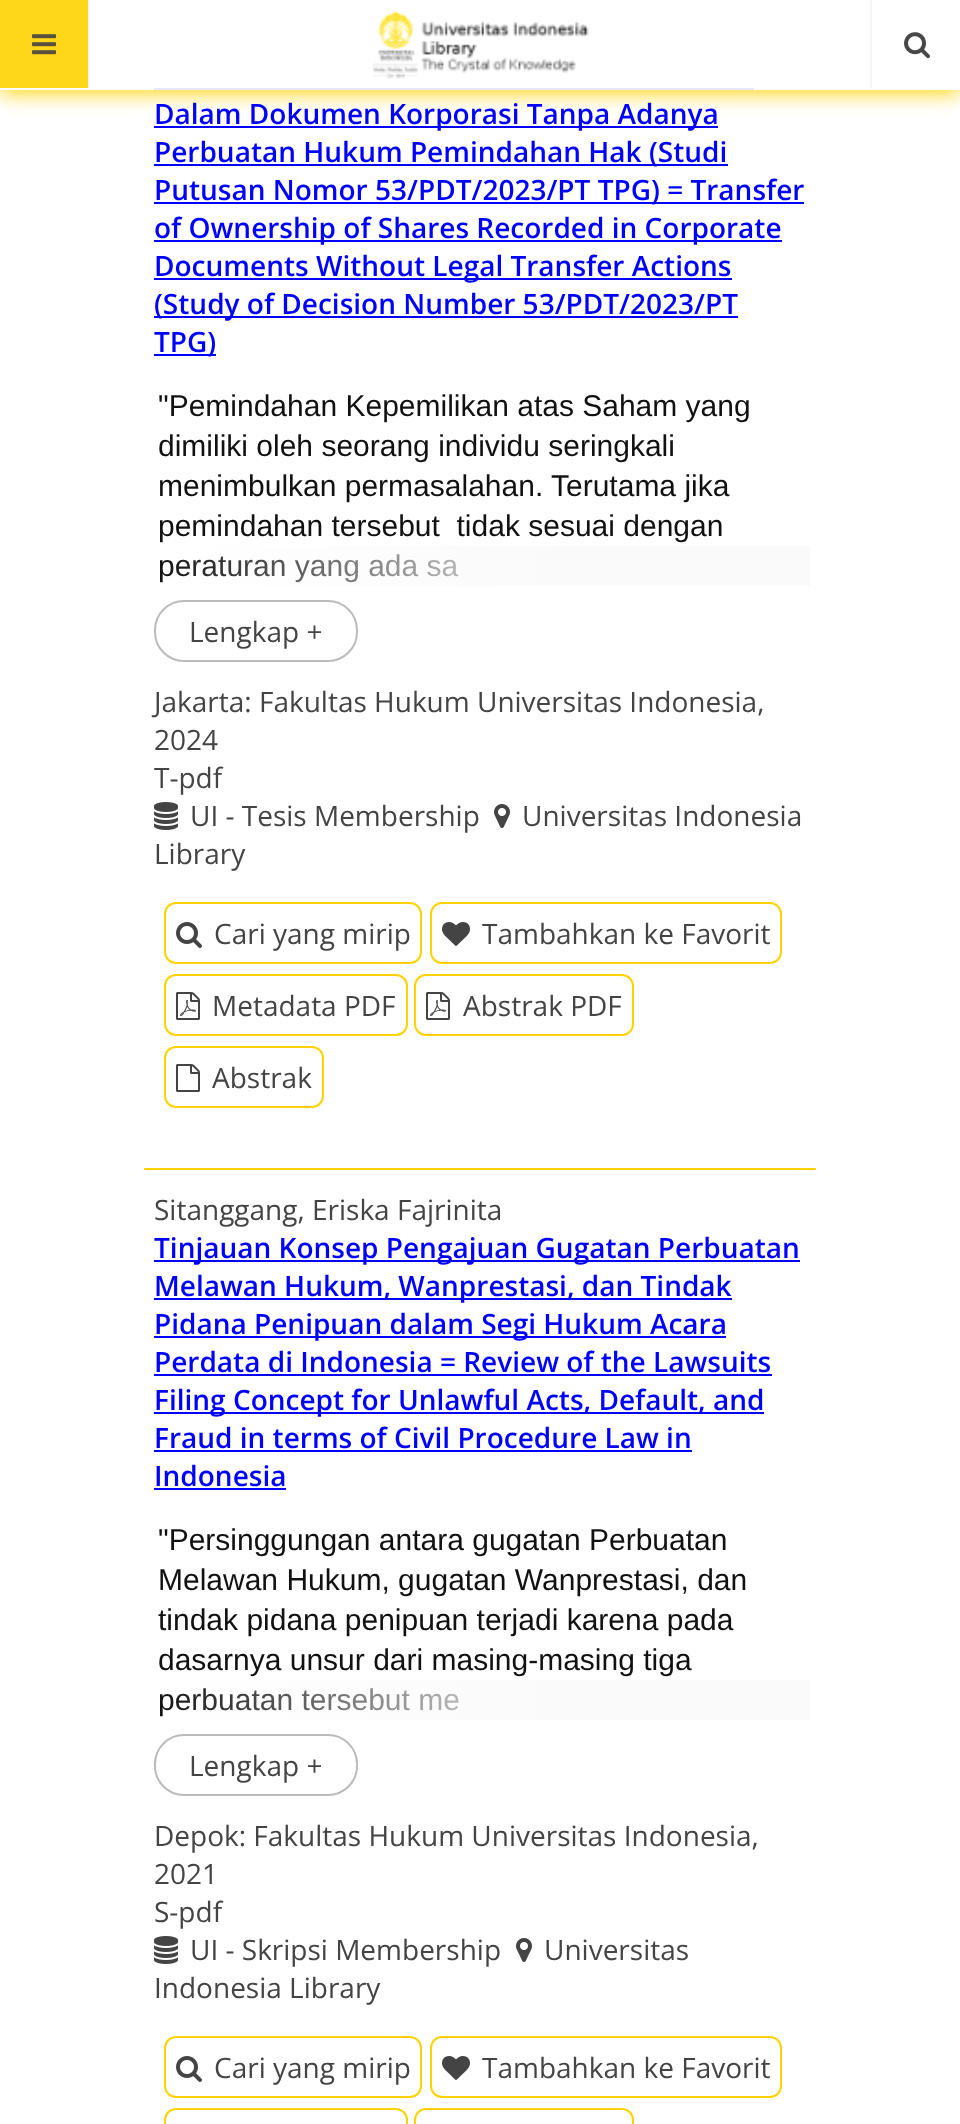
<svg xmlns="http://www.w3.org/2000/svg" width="960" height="2124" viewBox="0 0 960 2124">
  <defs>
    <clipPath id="clip1"><path d="M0 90h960v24H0z"/></clipPath>
    <linearGradient id="g1" gradientUnits="userSpaceOnUse" x1="158" y1="566" x2="810" y2="566"><stop offset="0" stop-color="#fafafa" stop-opacity="0"/><stop offset="0.65" stop-color="#fafafa"/></linearGradient>
    <linearGradient id="g2" gradientUnits="userSpaceOnUse" x1="158" y1="1700" x2="810" y2="1700"><stop offset="0" stop-color="#fafafa" stop-opacity="0"/><stop offset="0.65" stop-color="#fafafa"/></linearGradient>
  </defs>
  <rect width="100%" height="100%" fill="#fff"/>
  <path d="M154 88h600v2H154z" fill="#00f"/>
  <g clip-path="url(#clip1)">
    <path d="M0 4h960v90H0z" fill="#ffd200e6" filter="blur(10px)"/>
  </g>
  <path d="M154 88h600v2H154z" fill="#ffffffe6"/>
  <path d="M0 0h88v88H0z" fill="#ffd71a"/>
  <path d="M88 0h2v88H88z" fill="#f5f5f5"/>
  <image x="32" y="34" width="24" height="21" href="img/1.png"/>
  <image x="372" y="11" width="217" height="68" href="img/2.png"/>
  <path d="M870 0h2v88H870z" fill="#f5f5f5"/>
  <image x="904" y="32" width="26" height="27" href="img/3.png"/>
  <path d="M154 126h564v2H154z" fill="#00f"/>
  <path d="M154 164h574v2H154z" fill="#00f"/>
  <path d="M154 202h650v2H154z" fill="#00f"/>
  <path d="M154 240h628v2H154z" fill="#00f"/>
  <path d="M154 278h578v2H154z" fill="#00f"/>
  <path d="M154 316h584v2H154z" fill="#00f"/>
  <path d="M154 354h62v2H154z" fill="#00f"/>
  <rect x="155" y="601" width="202" height="60" rx="29" fill="none" stroke="#bbb" stroke-width="2"/>
  <image x="154" y="802" width="24" height="28" href="img/4.png"/>
  <image x="494" y="804" width="16" height="24" href="img/5.png"/>
  <rect x="165" y="903" width="256" height="60" rx="11" fill="none" stroke="#ffd200" stroke-width="2"/>
  <image x="176" y="922" width="26" height="26" href="img/6.png"/>
  <rect x="431" y="903" width="350" height="60" rx="11" fill="none" stroke="#ffd200" stroke-width="2"/>
  <image x="442" y="922" width="28" height="24" href="img/7.png"/>
  <rect x="165" y="975" width="242" height="60" rx="11" fill="none" stroke="#ffd200" stroke-width="2"/>
  <image x="176" y="992" width="24" height="28" href="img/8.png"/>
  <rect x="415" y="975" width="218" height="60" rx="11" fill="none" stroke="#ffd200" stroke-width="2"/>
  <image x="426" y="992" width="24" height="28" href="img/8.png"/>
  <rect x="165" y="1047" width="158" height="60" rx="11" fill="none" stroke="#ffd200" stroke-width="2"/>
  <image x="176" y="1064" width="24" height="28" href="img/9.png"/>
  <rect x="144" y="1168" width="672" height="2" rx="1" fill="#ffd200"/>
  <path d="M154 1260h646v2H154z" fill="#00f"/>
  <path d="M154 1298h578v2H154z" fill="#00f"/>
  <path d="M154 1336h572v2H154z" fill="#00f"/>
  <path d="M154 1374h618v2H154z" fill="#00f"/>
  <path d="M154 1412h610v2H154z" fill="#00f"/>
  <path d="M154 1450h538v2H154z" fill="#00f"/>
  <path d="M154 1488h132v2H154z" fill="#00f"/>
  <rect x="155" y="1735" width="202" height="60" rx="29" fill="none" stroke="#bbb" stroke-width="2"/>
  <image x="154" y="1936" width="24" height="28" href="img/4.png"/>
  <image x="516" y="1938" width="16" height="24" href="img/5.png"/>
  <rect x="165" y="2037" width="256" height="60" rx="11" fill="none" stroke="#ffd200" stroke-width="2"/>
  <image x="176" y="2056" width="26" height="26" href="img/6.png"/>
  <rect x="431" y="2037" width="350" height="60" rx="11" fill="none" stroke="#ffd200" stroke-width="2"/>
  <image x="442" y="2056" width="28" height="24" href="img/7.png"/>
  <rect x="165" y="2109" width="242" height="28" rx="11" fill="none" stroke="#ffd200" stroke-width="2"/>
  <rect x="415" y="2109" width="218" height="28" rx="11" fill="none" stroke="#ffd200" stroke-width="2"/>
  <g font-family="Open Sans" font-size="28" font-weight="600" fill="#00f">
    <text x="154" y="124">Dalam Dokumen Korporasi Tanpa Adanya</text>
    <text x="154" y="162">Perbuatan Hukum Pemindahan Hak (Studi</text>
    <text x="154" y="200">Putusan Nomor 53/PDT/2023/PT TPG) = Transfer</text>
    <text x="154" y="238">of Ownership of Shares Recorded in Corporate</text>
    <text x="154" y="276">Documents Without Legal Transfer Actions</text>
    <text x="154" y="314">(Study of Decision Number 53/PDT/2023/PT</text>
    <text x="154" y="352">TPG)</text>
  </g>
  <g font-family="Liberation Sans" font-size="30" fill="#111">
    <text x="158" y="416">"Pemindahan Kepemilikan atas Saham yang</text>
    <text x="158" y="456">dimiliki oleh seorang individu seringkali</text>
    <text x="158" y="496">menimbulkan permasalahan. Terutama jika</text>
    <text x="158" y="536" xml:space="preserve">pemindahan tersebut  tidak sesuai dengan</text>
    <text x="158" y="576">peraturan yang ada sa</text>
  </g>
  <path d="M167 546h643v40H167z" fill="url(#g1)"/>
  <g font-family="Open Sans" font-size="28" fill="#444">
    <text x="189" y="642">Lengkap +</text>
    <text x="154" y="712">Jakarta: Fakultas Hukum Universitas Indonesia,</text>
    <text x="154" y="750">2024</text>
    <text x="154" y="788">T-pdf</text>
    <text x="190" y="826">UI - Tesis Membership</text>
    <text x="522" y="826">Universitas Indonesia</text>
    <text x="154" y="864">Library</text>
    <text x="214" y="944">Cari yang mirip</text>
    <text x="482" y="944">Tambahkan ke Favorit</text>
    <text x="212" y="1016">Metadata PDF</text>
    <text x="463" y="1016">Abstrak PDF</text>
    <text x="212" y="1088">Abstrak</text>
    <text x="154" y="1220">Sitanggang, Eriska Fajrinita</text>
  </g>
  <g font-family="Open Sans" font-size="28" font-weight="600" fill="#00f">
    <text x="154" y="1258">Tinjauan Konsep Pengajuan Gugatan Perbuatan</text>
    <text x="154" y="1296">Melawan Hukum, Wanprestasi, dan Tindak</text>
    <text x="154" y="1334">Pidana Penipuan dalam Segi Hukum Acara</text>
    <text x="154" y="1372">Perdata di Indonesia = Review of the Lawsuits</text>
    <text x="154" y="1410">Filing Concept for Unlawful Acts, Default, and</text>
    <text x="154" y="1448">Fraud in terms of Civil Procedure Law in</text>
    <text x="154" y="1486">Indonesia</text>
  </g>
  <g font-family="Liberation Sans" font-size="30" fill="#111">
    <text x="158" y="1550">"Persinggungan antara gugatan Perbuatan</text>
    <text x="158" y="1590">Melawan Hukum, gugatan Wanprestasi, dan</text>
    <text x="158" y="1630">tindak pidana penipuan terjadi karena pada</text>
    <text x="158" y="1670">dasarnya unsur dari masing-masing tiga</text>
    <text x="158" y="1710">perbuatan tersebut me</text>
  </g>
  <path d="M167 1680h643v40H167z" fill="url(#g2)"/>
  <g font-family="Open Sans" font-size="28" fill="#444">
    <text x="189" y="1776">Lengkap +</text>
    <text x="154" y="1846">Depok: Fakultas Hukum Universitas Indonesia,</text>
    <text x="154" y="1884">2021</text>
    <text x="154" y="1922">S-pdf</text>
    <text x="190" y="1960">UI - Skripsi Membership</text>
    <text x="544" y="1960">Universitas</text>
    <text x="154" y="1998">Indonesia Library</text>
    <text x="214" y="2078">Cari yang mirip</text>
    <text x="482" y="2078">Tambahkan ke Favorit</text>
  </g>
</svg>
